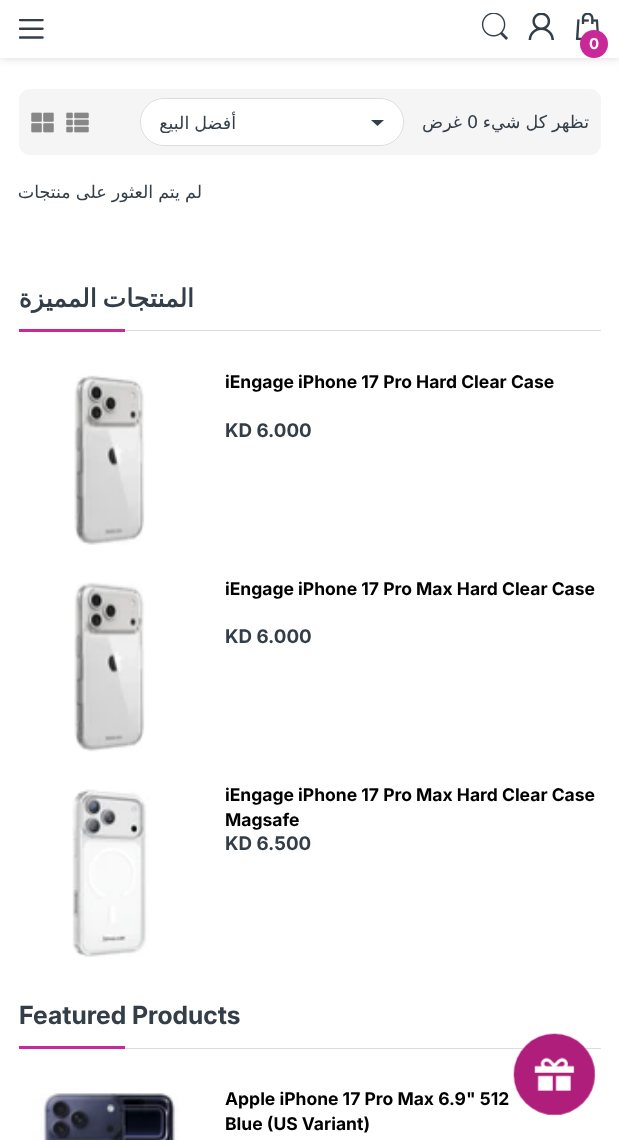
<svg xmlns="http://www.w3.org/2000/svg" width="619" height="1140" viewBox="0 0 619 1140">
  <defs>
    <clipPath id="clip1"><path d="M160 111h193v22H160z"/></clipPath>
  </defs>
  <rect width="100%" height="100%" fill="#fff"/>
  <path d="M0 0h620v58H0z" fill="#c9c9c9bf" filter="blur(5px)"/>
  <path d="M0 0h619v58H0z" fill="#fff"/>
  <image x="19" y="19" width="25" height="20" href="img/1.png"/>
  <image x="481" y="13" width="27" height="27" href="img/2.png"/>
  <image x="528" y="13" width="26" height="27" href="img/3.png"/>
  <image x="575" y="13" width="24" height="27" href="img/4.png"/>
  <circle cx="594" cy="44" r="14" fill="#c92998"/>
  <rect x="19" y="89" width="582" height="66" rx="11" fill="#f5f5f5"/>
  <image x="31" y="112" width="23" height="21" href="img/5.png"/>
  <image x="66" y="112" width="23" height="21" href="img/6.png"/>
  <rect x="140.5" y="98.5" width="263" height="47" rx="23.5" fill="none" stroke="#ddd"/>
  <rect x="141" y="99" width="262" height="46" rx="23" fill="#fff"/>
  <path d="M371 120L377.5 126L384 120Z" fill="#333e48" fill-rule="evenodd"/>
  <path d="M125 330h476v1H125z" fill="#ddd"/>
  <path d="M19 329h106v3H19z" fill="#c92998"/>
  <image x="74" y="375" width="71" height="170" href="img/7.png"/>
  <image x="74" y="582" width="71" height="170" href="img/8.png"/>
  <image x="72" y="789" width="77" height="168" href="img/9.png"/>
  <path d="M125 1048h476v1H125z" fill="#ddd"/>
  <path d="M19 1046h106v3H19z" fill="#c92998"/>
  <image x="33" y="1093" width="146" height="47" href="img/10.png"/>
  <image x="513" y="1033" width="83" height="83" href="img/11.png"/>
  <text x="589" y="49" font-family="Inter" font-size="15" font-weight="bold" fill="#fff">0</text>
  <g clip-path="url(#clip1)">
    <text x="236" y="129" word-spacing="-0.5" font-family="DejaVu Sans" font-size="17.5" direction="rtl" fill="#333e48">أفضل البيع</text>
  </g>
  <text x="462" y="128" font-family="DejaVu Sans" font-size="17.5" direction="rtl" fill="#333e48">غرض</text>
  <text x="467" y="128" font-family="DejaVu Sans" font-size="17.5" fill="#333e48">0</text>
  <g font-family="DejaVu Sans" font-size="17.5" direction="rtl" fill="#333e48">
    <text x="589" y="128" word-spacing="-0.5">تظهر كل شيء</text>
    <text x="202" y="198" word-spacing="-0.5">لم يتم العثور على منتجات</text>
  </g>
  <text x="194" y="307" word-spacing="-2" font-family="DejaVu Sans" font-size="25" font-weight="bold" direction="rtl" fill="#333e48">المنتجات المميزة</text>
  <text x="225" y="388" font-family="Inter" font-size="17.5" font-weight="bold" fill="#000">iEngage iPhone 17 Pro Hard Clear Case</text>
  <text x="225" y="437" font-family="Inter" font-size="18.75" font-weight="bold" fill="#333e48">KD 6.000</text>
  <text x="225" y="595" font-family="Inter" font-size="17.5" font-weight="bold" fill="#000">iEngage iPhone 17 Pro Max Hard Clear Case</text>
  <text x="225" y="643" font-family="Inter" font-size="18.75" font-weight="bold" fill="#333e48">KD 6.000</text>
  <g font-family="Inter" font-size="17.5" font-weight="bold" fill="#000">
    <text x="225" y="801">iEngage iPhone 17 Pro Max Hard Clear Case</text>
    <text x="225" y="826">Magsafe</text>
  </g>
  <text x="225" y="850" font-family="Inter" font-size="18.75" font-weight="bold" fill="#333e48">KD 6.500</text>
  <text x="19" y="1024" font-family="'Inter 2'" font-size="25" font-weight="bold" fill="#333e48">Featured Products</text>
  <g font-family="Inter" font-size="17.5" font-weight="bold" fill="#000">
    <text x="225" y="1105">Apple iPhone 17 Pro Max 6.9" 512</text>
    <text x="225" y="1130">Blue (US Variant)</text>
  </g>
</svg>
